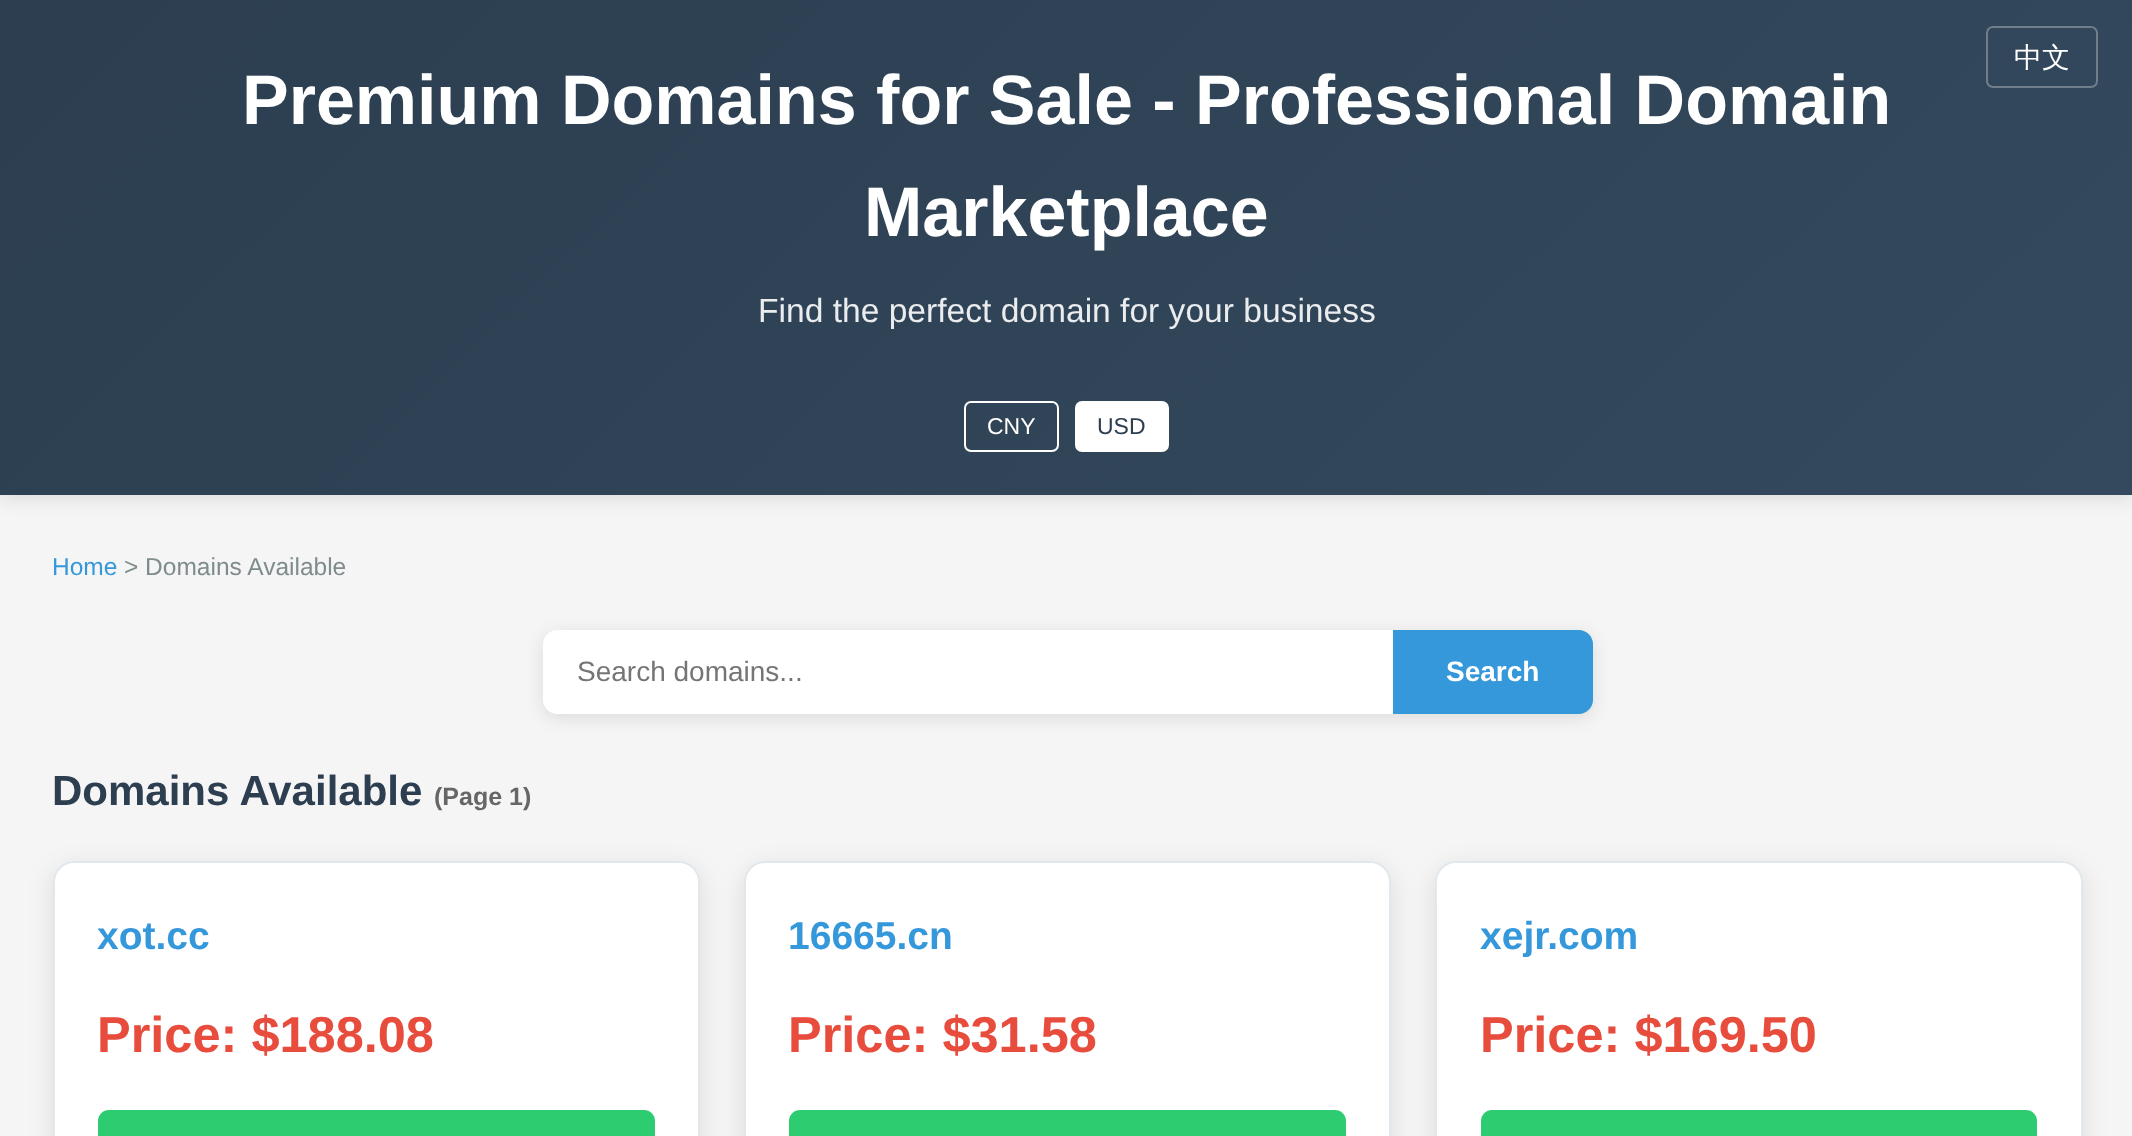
<svg xmlns="http://www.w3.org/2000/svg" width="2132" height="1136" viewBox="0 0 2132 1136">
  <defs>
    <linearGradient id="g1" gradientUnits="userSpaceOnUse" x1="410" y1="-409" x2="1724" y2="905"><stop offset="0" stop-color="#2c3e50"/><stop offset="1" stop-color="#34495e"/></linearGradient>
  </defs>
  <rect width="100%" height="100%" fill="#f5f5f5"/>
  <path d="M0 4h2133v495H0z" fill="#0000001a" filter="blur(9px)"/>
  <path d="M0 0h2132v495H0z" fill="url(#g1)"/>
  <rect x="1987" y="27" width="110" height="60" rx="6" fill="none" stroke="#707e8c" stroke-width="2"/>
  <rect x="965" y="402" width="93" height="49" rx="6" fill="none" stroke="#fff" stroke-width="2"/>
  <rect x="1076" y="402" width="92" height="49" rx="6" fill="#fff" stroke="#fff" stroke-width="2"/>
  <rect x="543" y="634" width="1050" height="84" rx="14" fill="#0000001a" filter="blur(9px)"/>
  <path d="M557 630H1393V714H557C549.5 714 543 707.5 543 700V644C543 636.5 549.5 630 557 630Z" fill="#fff"/>
  <path d="M1393 630H1579C1586.5 630 1593 636.5 1593 644V700C1593 707.5 1586.5 714 1579 714H1393Z" fill="#3498db"/>
  <rect x="53" y="868" width="647" height="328" rx="21" fill="#0000001a" filter="blur(13px)"/>
  <rect x="54" y="862" width="645" height="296" rx="20" fill="#fff" stroke="#e1e8ed" stroke-width="2"/>
  <rect x="98" y="1110" width="557" height="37" rx="11" fill="#2ecc71"/>
  <rect x="744" y="868" width="647" height="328" rx="21" fill="#0000001a" filter="blur(13px)"/>
  <rect x="745" y="862" width="645" height="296" rx="20" fill="#fff" stroke="#e1e8ed" stroke-width="2"/>
  <rect x="789" y="1110" width="557" height="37" rx="11" fill="#2ecc71"/>
  <rect x="1435" y="868" width="648" height="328" rx="21" fill="#0000001a" filter="blur(13px)"/>
  <rect x="1436" y="862" width="646" height="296" rx="20" fill="#fff" stroke="#e1e8ed" stroke-width="2"/>
  <rect x="1481" y="1110" width="556" height="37" rx="11" fill="#2ecc71"/>
  <text x="2014" y="67" font-family="WenQuanYi Zen Hei" font-size="28" font-weight="500" fill="#fff">中文</text>
  <g font-family="Liberation Sans" font-size="70" font-weight="bold" fill="#fff">
    <text x="242" y="124">Premium Domains for Sale - Professional Domain</text>
    <text x="864" y="236">Marketplace</text>
  </g>
  <text x="758" y="322" font-family="Liberation Sans" font-size="33.6" fill="#eaecee">Find the perfect domain for your business</text>
  <text x="987" y="434" font-family="Liberation Sans" font-size="23" fill="#fff">CNY</text>
  <text x="1097" y="434" font-family="Liberation Sans" font-size="23" fill="#2c3e50">USD</text>
  <text x="52" y="575" font-family="Liberation Sans" font-size="24.5" fill="#3498db">Home</text>
  <text x="124" y="575" font-family="Liberation Sans" font-size="24.5" fill="#7f8c8d">&gt; Domains Available</text>
  <text x="577" y="681" font-family="Liberation Sans" font-size="28" fill="#757575">Search domains...</text>
  <text x="1446" y="681" font-family="Liberation Sans" font-size="28" font-weight="bold" fill="#fff">Search</text>
  <text x="52" y="805" font-family="Liberation Sans" font-size="42" font-weight="bold" fill="#2c3e50">Domains Available</text>
  <text x="434" y="805" font-family="Liberation Sans" font-size="25" font-weight="bold" fill="#666">(Page 1)</text>
  <text x="97" y="949" font-family="Liberation Sans" font-size="39" font-weight="bold" fill="#3498db">xot.cc</text>
  <text x="97" y="1052" font-family="Liberation Sans" font-size="50.5" font-weight="bold" fill="#e74c3c">Price: $188.08</text>
  <text x="788" y="949" font-family="Liberation Sans" font-size="39" font-weight="bold" fill="#3498db">16665.cn</text>
  <text x="788" y="1052" font-family="Liberation Sans" font-size="50.5" font-weight="bold" fill="#e74c3c">Price: $31.58</text>
  <text x="1480" y="949" font-family="Liberation Sans" font-size="39" font-weight="bold" fill="#3498db">xejr.com</text>
  <text x="1480" y="1052" font-family="Liberation Sans" font-size="50.5" font-weight="bold" fill="#e74c3c">Price: $169.50</text>
</svg>
